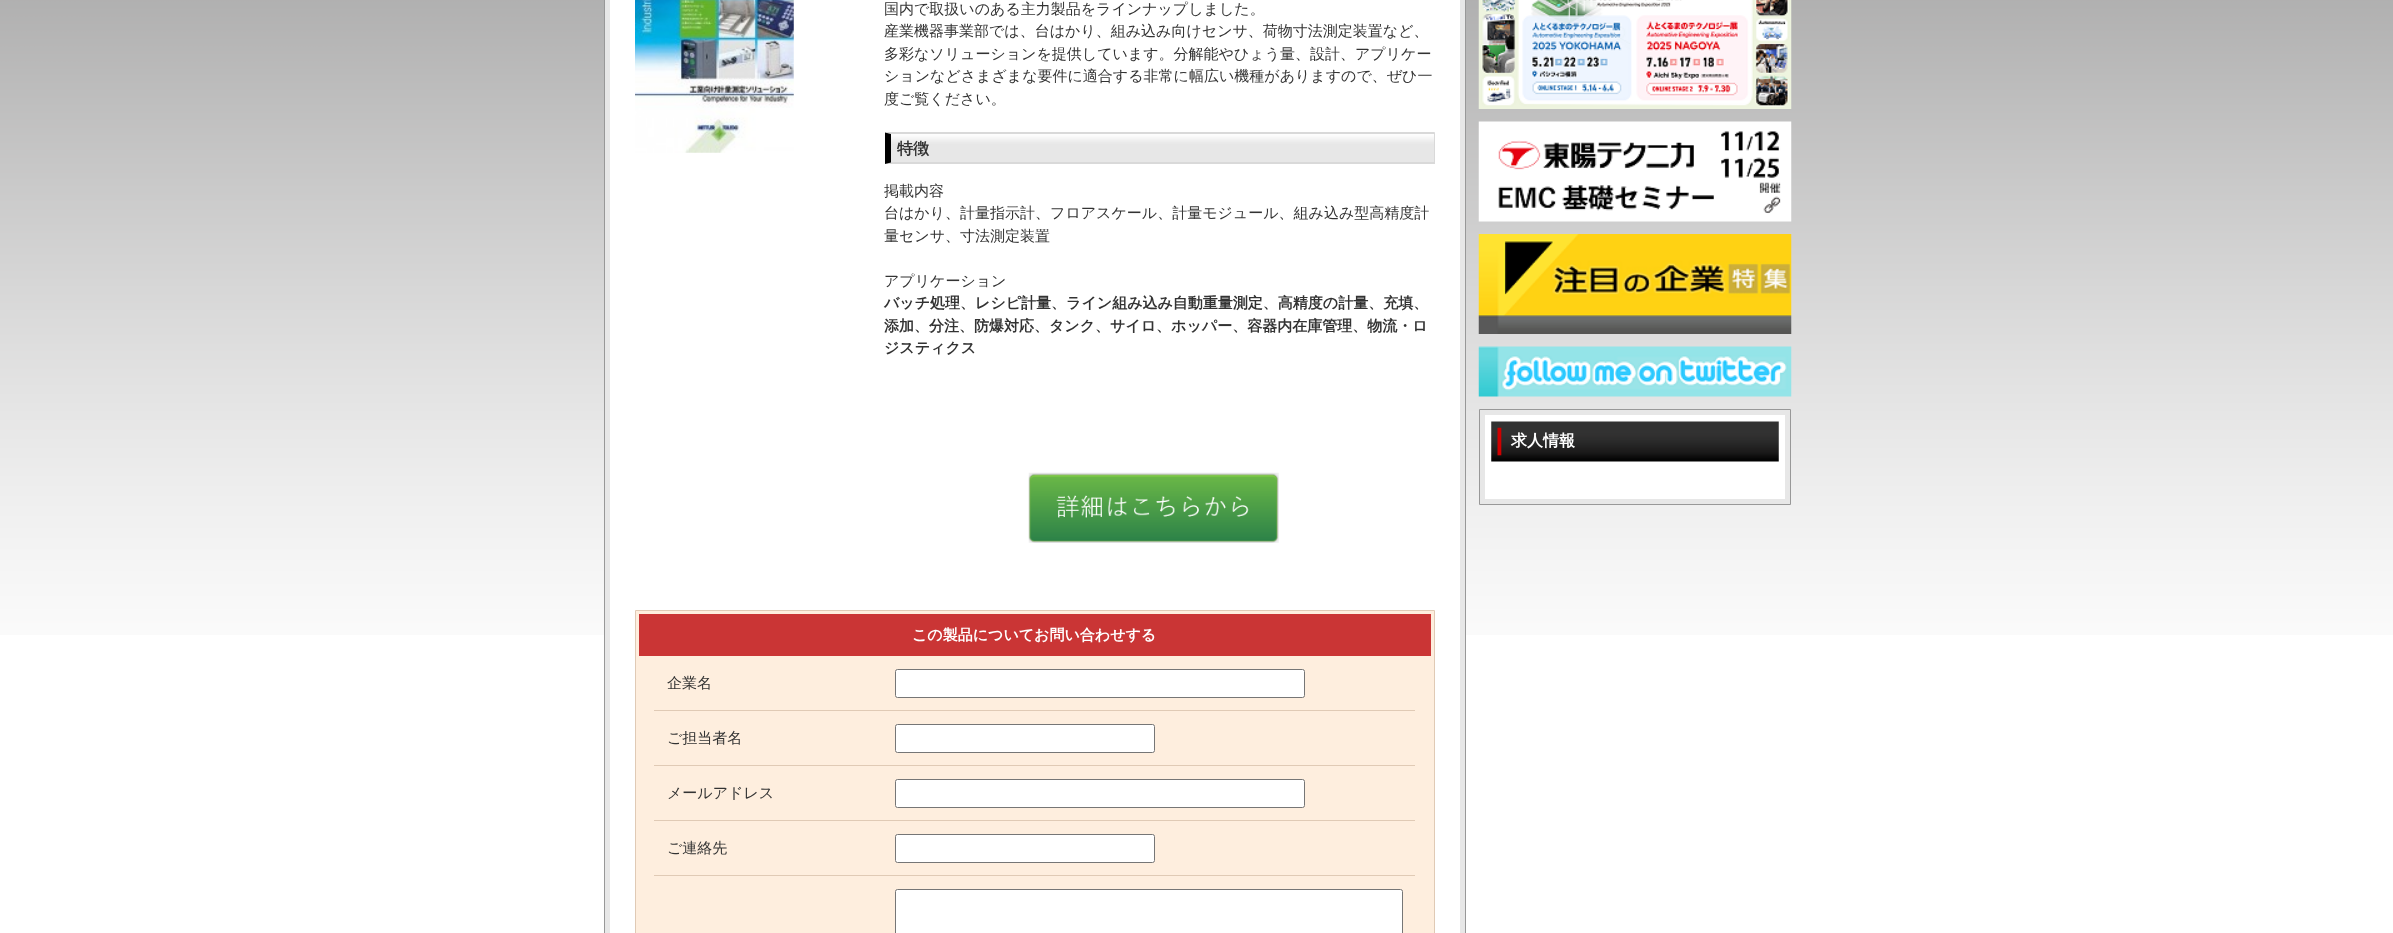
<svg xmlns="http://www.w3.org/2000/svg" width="2393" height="933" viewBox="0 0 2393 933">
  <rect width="100%" height="100%" fill="#fff"/>
  <image x="0" y="0" width="2393" height="635" href="img/1.png"/>
  <path d="M604.5 -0.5h861v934H604.5z" fill="none" stroke="#989898"/>
  <path d="M610 0h850v635H610z" fill="#fff"/>
  <path d="M607.5 -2.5h855v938H607.5z" fill="none" stroke="#e7e7e7" stroke-width="5"/>
  <image x="635" y="0" width="159" height="153" href="img/2.png"/>
  <path d="M891 159h543v3H891z" fill="#e7e7e7"/>
  <image x="891" y="134" width="543" height="25" href="img/3.png"/>
  <path d="M885 132H1435L1434 134H891Z" fill="#d9d9d9"/>
  <path d="M1434 133h1v31H1434z" fill="#d9d9d9"/>
  <path d="M1435 164H885L891 162H1434Z" fill="#d9d9d9"/>
  <path d="M885 164V132.5L891 134V162.5Z" fill="#000"/>
  <image x="1028" y="472" width="251" height="71" href="img/4.png"/>
  <path d="M635.5 610.5h799v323H635.5z" fill="#feeede" stroke="#e0cab5"/>
  <path d="M639 614h792v42H639z" fill="#ca3535"/>
  <path d="M654 710h761v1H654z" fill="#e0cab5"/>
  <rect x="895.5" y="669.5" width="409" height="28" rx="2" fill="#fff" stroke="#767676"/>
  <path d="M654 765h761v1H654z" fill="#e0cab5"/>
  <rect x="895.5" y="724.5" width="259" height="28" rx="2" fill="#fff" stroke="#767676"/>
  <path d="M654 820h761v1H654z" fill="#e0cab5"/>
  <rect x="895.5" y="779.5" width="409" height="28" rx="2" fill="#fff" stroke="#767676"/>
  <path d="M654 875h761v1H654z" fill="#e0cab5"/>
  <rect x="895.5" y="834.5" width="259" height="28" rx="2" fill="#fff" stroke="#767676"/>
  <rect x="895.5" y="889.5" width="507" height="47" rx="2" fill="#fff" stroke="#767676"/>
  <image x="1478" y="0" width="314" height="109" href="img/5.png"/>
  <image x="1478" y="121" width="314" height="101" href="img/6.png"/>
  <image x="1478" y="234" width="314" height="100" href="img/7.png"/>
  <image x="1478" y="346" width="314" height="51" href="img/8.png"/>
  <path d="M1479.5 409.5h311v95H1479.5z" fill="none" stroke="#989898"/>
  <path d="M1482.5 412.5h305v89H1482.5z" fill="#fff" stroke="#e7e7e7" stroke-width="5"/>
  <image x="1491" y="421" width="288" height="41" href="img/9.png"/>
  <g font-family="WenQuanYi Zen Hei" font-size="15" font-weight="500" fill="#333">
    <text x="884" y="14">国内で取扱いのある主力製品をラインナップしました。</text>
    <text x="884" y="36">産業機器事業部では、台はかり、組み込み向けセンサ、荷物寸法測定装置など、</text>
    <text x="884" y="59">多彩なソリューションを提供しています。分解能やひょう量、設計、アプリケー</text>
    <text x="884" y="81">ションなどさまざまな要件に適合する非常に幅広い機種がありますので、ぜひ一</text>
    <text x="884" y="104">度ご覧ください。</text>
  </g>
  <text x="897" y="154" font-family="WenQuanYi Zen Hei" font-size="16" font-weight="bold" fill="#333">特徴</text>
  <g font-family="WenQuanYi Zen Hei" font-size="15" font-weight="500" fill="#333">
    <text x="884" y="196">掲載内容</text>
    <text x="884" y="218">台はかり、計量指示計、フロアスケール、計量モジュール、組み込み型高精度計</text>
    <text x="884" y="241">量センサ、寸法測定装置</text>
    <text x="884" y="286">アプリケーション</text>
  </g>
  <g font-family="WenQuanYi Zen Hei" font-size="15" font-weight="bold" fill="#333">
    <text x="884" y="308">バッチ処理、レシピ計量、ライン組み込み自動重量測定、高精度の計量、充填、</text>
    <text x="884" y="331">添加、分注、防爆対応、タンク、サイロ、ホッパー、容器内在庫管理、物流・ロ</text>
    <text x="884" y="353">ジスティクス</text>
  </g>
  <text x="912" y="640" font-family="WenQuanYi Zen Hei" font-size="15" font-weight="bold" fill="#fff">この製品についてお問い合わせする</text>
  <g font-family="WenQuanYi Zen Hei" font-size="15" font-weight="500" fill="#333">
    <text x="667" y="688">企業名</text>
    <text x="667" y="743">ご担当者名</text>
    <text x="667" y="798">メールアドレス</text>
    <text x="667" y="853">ご連絡先</text>
  </g>
  <text x="1511" y="446" font-family="WenQuanYi Zen Hei" font-size="16" font-weight="bold" fill="#fff">求人情報</text>
</svg>
